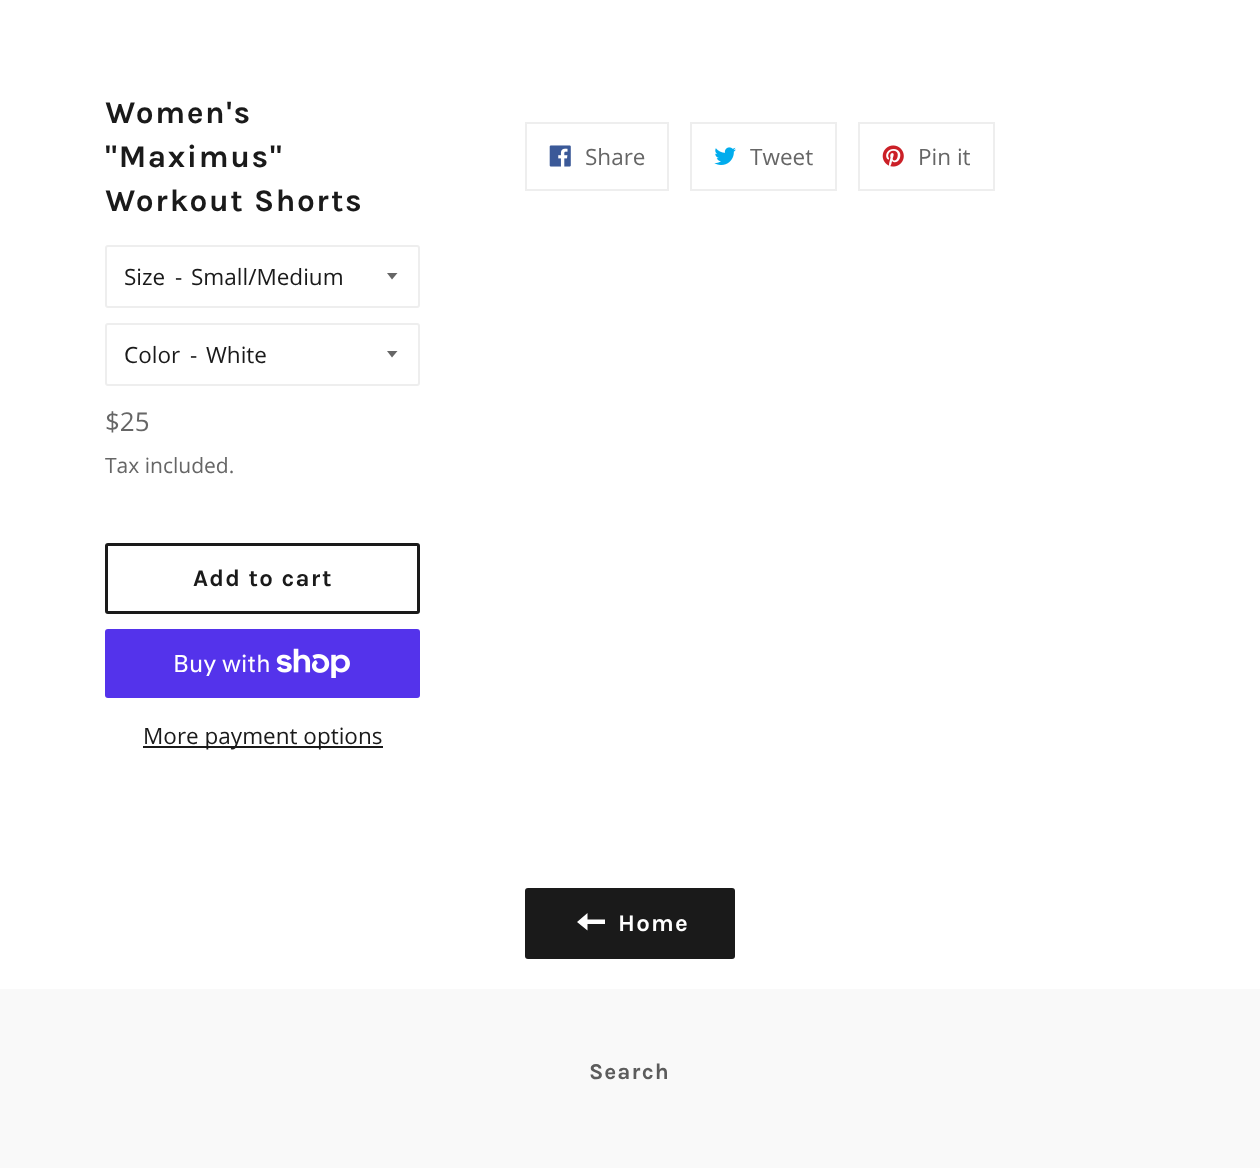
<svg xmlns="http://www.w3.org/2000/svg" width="1260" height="1168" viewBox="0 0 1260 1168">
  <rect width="100%" height="100%" fill="#fff"/>
  <rect x="106" y="246" width="313" height="61" rx="2" fill="none" stroke="#eee" stroke-width="2"/>
  <path d="M387 273L392 279.5L397.5 273Z" fill="#666"/>
  <rect x="106" y="324" width="313" height="61" rx="2" fill="none" stroke="#eee" stroke-width="2"/>
  <path d="M387 351L392 357.5L397.5 351Z" fill="#666"/>
  <rect x="106.5" y="544.5" width="312" height="68" rx="1.5" fill="none" stroke="#1a1a1a" stroke-width="3"/>
  <rect x="105" y="629" width="315" height="69" rx="3" fill="#5433eb"/>
  <image x="276" y="648" width="74" height="30" href="img/1.png"/>
  <path d="M143 746h240v2H143z" fill="#1a1a1a"/>
  <path d="M526 123h142v67H526z" fill="none" stroke="#eee" stroke-width="2"/>
  <image x="549" y="145" width="22" height="22" href="img/2.png"/>
  <path d="M691 123h145v67H691z" fill="none" stroke="#eee" stroke-width="2"/>
  <image x="714" y="147" width="22" height="18" href="img/3.png"/>
  <path d="M859 123h135v67H859z" fill="none" stroke="#eee" stroke-width="2"/>
  <image x="882" y="145" width="22" height="22" href="img/4.png"/>
  <rect x="525" y="888" width="210" height="71" rx="3" fill="#1a1a1a"/>
  <path d="M587.5 919.5V913L577 922L587.5 930.5V924H605V919.5Z" fill="#fff"/>
  <path d="M0 989h1260v179H0z" fill="#f9f9f9"/>
  <g font-family="Karla" font-size="31.5" font-weight="bold" letter-spacing="1.6" fill="#1a1a1a">
    <text x="105" y="123">Women's</text>
    <text x="105" y="167">"Maximus"</text>
    <text x="105" y="211">Workout Shorts</text>
  </g>
  <g font-family="Open Sans" font-size="22.5" fill="#1a1a1a">
    <text x="124" y="285">Size</text>
    <text x="175" y="285">-</text>
    <text x="191" y="285">Small/Medium</text>
    <text x="124" y="363">Color</text>
    <text x="190" y="363">-</text>
    <text x="206" y="363">White</text>
  </g>
  <text x="105" y="431" font-family="Open Sans" font-size="26" fill="#666">$25</text>
  <text x="105" y="473" font-family="Open Sans" font-size="21" fill="#666">Tax included.</text>
  <text x="193" y="586" font-family="Karla" font-size="24" font-weight="bold" letter-spacing="1.25" fill="#1a1a1a">Add to cart</text>
  <text x="173" y="672" font-family="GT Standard" font-size="24" fill="#fff">Buy with</text>
  <text x="143" y="744" font-family="Open Sans" font-size="22.5" fill="#1a1a1a">More payment options</text>
  <g font-family="Open Sans" font-size="22.5" fill="#666">
    <text x="585" y="165">Share</text>
    <text x="750" y="165">Tweet</text>
    <text x="918" y="165">Pin it</text>
  </g>
  <text x="618" y="931" font-family="Karla" font-size="24" font-weight="bold" letter-spacing="1.25" fill="#fff">Home</text>
  <text x="589" y="1079" font-family="Karla" font-size="22.5" font-weight="bold" letter-spacing="1" fill="#5c5c5c">Search</text>
</svg>
